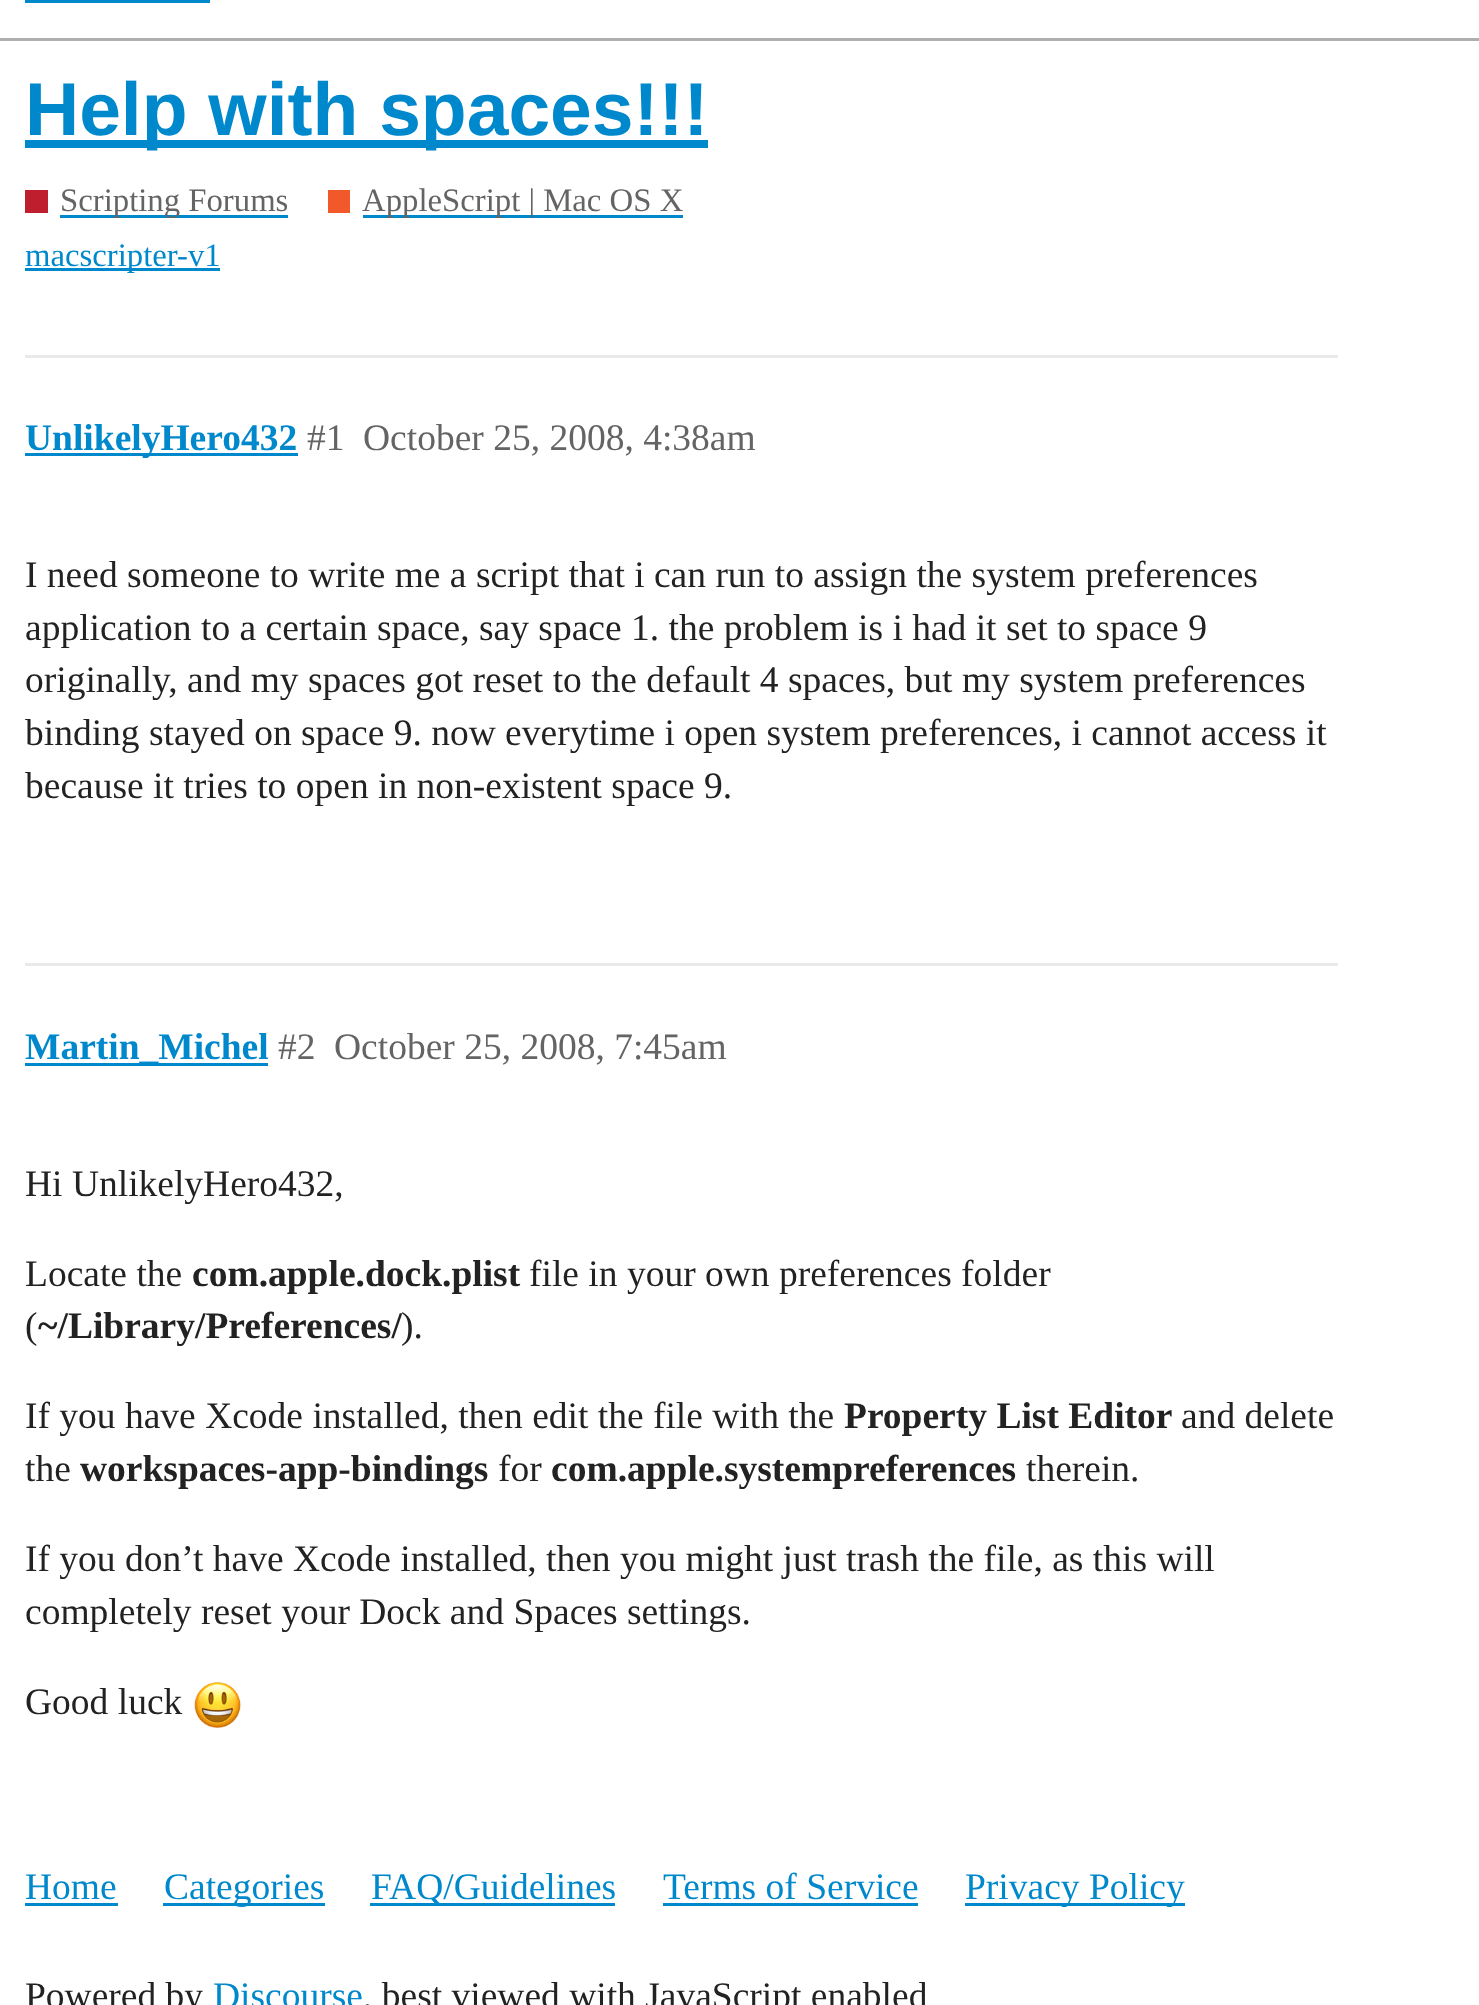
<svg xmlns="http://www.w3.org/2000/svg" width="1479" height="2005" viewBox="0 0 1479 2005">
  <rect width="100%" height="100%" fill="#fff"/>
  <path d="M0 38h1479v3H0z" fill="#afafaf"/>
  <path d="M25 0h185v3H25z" fill="#08c"/>
  <path d="M25 140h683v8H25z" fill="#08c"/>
  <path d="M25 190h23v23H25z" fill="#bf1e2e"/>
  <path d="M60 215h228v3H60z" fill="#08c"/>
  <path d="M328 190h22v23H328z" fill="#f1592a"/>
  <path d="M363 215h320v3H363z" fill="#08c"/>
  <path d="M25 268h195v3H25z" fill="#08c"/>
  <path d="M25 355h1313v3H25z" fill="#e9e9e9"/>
  <path d="M25 453h273v3H25z" fill="#08c"/>
  <path d="M25 963h1313v3H25z" fill="#e9e9e9"/>
  <path d="M25 1063h243v3H25z" fill="#08c"/>
  <image x="192" y="1680" width="51" height="50" href="img/1.png"/>
  <path d="M25 1903h93v3H25z" fill="#08c"/>
  <path d="M163 1903h162v3H163z" fill="#08c"/>
  <path d="M370 1903h245v3H370z" fill="#08c"/>
  <path d="M663 1903h255v3H663z" fill="#08c"/>
  <path d="M965 1903h220v3H965z" fill="#08c"/>
  <text x="25" y="135" font-family="Liberation Sans" font-size="75" font-weight="bold" fill="#08c">Help with spaces!!!</text>
  <g font-family="Liberation Serif" font-size="32.75" fill="#646464">
    <text x="60" y="211">Scripting Forums</text>
    <text x="362" y="211">AppleScript | Mac OS X</text>
  </g>
  <text x="25" y="266" font-family="Liberation Serif" font-size="32.75" fill="#08c">macscripter-v1</text>
  <text x="25" y="450" font-family="Liberation Serif" font-size="37.5" font-weight="bold" fill="#08c">UnlikelyHero432</text>
  <g font-family="Liberation Serif" font-size="37.5" fill="#646464">
    <text x="307" y="450">#1</text>
    <text x="363" y="450">October 25, 2008, 4:38am</text>
  </g>
  <g font-family="Liberation Serif" font-size="37.5" fill="#222">
    <text x="25" y="587">I need someone to write me a script that i can run to assign the system preferences</text>
    <text x="25" y="640">application to a certain space, say space 1. the problem is i had it set to space 9</text>
    <text x="25" y="692">originally, and my spaces got reset to the default 4 spaces, but my system preferences</text>
    <text x="25" y="745">binding stayed on space 9. now everytime i open system preferences, i cannot access it</text>
    <text x="25" y="798">because it tries to open in non-existent space 9.</text>
  </g>
  <text x="25" y="1059" font-family="Liberation Serif" font-size="37.5" font-weight="bold" fill="#08c">Martin_Michel</text>
  <g font-family="Liberation Serif" font-size="37.5" fill="#646464">
    <text x="278" y="1059">#2</text>
    <text x="334" y="1059">October 25, 2008, 7:45am</text>
  </g>
  <g font-family="Liberation Serif" font-size="37.5" fill="#222">
    <text x="25" y="1196">Hi UnlikelyHero432,</text>
    <text x="25" y="1286">Locate the</text>
  </g>
  <text x="192" y="1286" font-family="Liberation Serif" font-size="37.5" font-weight="bold" fill="#222">com.apple.dock.plist</text>
  <g font-family="Liberation Serif" font-size="37.5" fill="#222">
    <text x="529" y="1286">file in your own preferences folder</text>
    <text x="25" y="1338">(</text>
  </g>
  <text x="38" y="1338" font-family="Liberation Serif" font-size="37.5" font-weight="bold" fill="#222">~/Library/Preferences/</text>
  <g font-family="Liberation Serif" font-size="37.5" fill="#222">
    <text x="401" y="1338">).</text>
    <text x="25" y="1428">If you have Xcode installed, then edit the file with the</text>
  </g>
  <text x="844" y="1428" font-family="Liberation Serif" font-size="37.5" font-weight="bold" fill="#222">Property List Editor</text>
  <g font-family="Liberation Serif" font-size="37.5" fill="#222">
    <text x="1181" y="1428">and delete</text>
    <text x="25" y="1481">the</text>
  </g>
  <text x="80" y="1481" font-family="Liberation Serif" font-size="37.5" font-weight="bold" fill="#222">workspaces-app-bindings</text>
  <text x="498" y="1481" font-family="Liberation Serif" font-size="37.5" fill="#222">for</text>
  <text x="551" y="1481" font-family="Liberation Serif" font-size="37.5" font-weight="bold" fill="#222">com.apple.systempreferences</text>
  <g font-family="Liberation Serif" font-size="37.5" fill="#222">
    <text x="1026" y="1481">therein.</text>
    <text x="25" y="1571">If you don’t have Xcode installed, then you might just trash the file, as this will</text>
    <text x="25" y="1624">completely reset your Dock and Spaces settings.</text>
    <text x="25" y="1714">Good luck</text>
  </g>
  <g font-family="Liberation Serif" font-size="37.5" fill="#08c">
    <text x="25" y="1899">Home</text>
    <text x="164" y="1899">Categories</text>
    <text x="371" y="1899">FAQ/Guidelines</text>
    <text x="663" y="1899">Terms of Service</text>
    <text x="965" y="1899">Privacy Policy</text>
  </g>
  <text x="25" y="2008" font-family="Liberation Serif" font-size="37.5" fill="#222">Powered by</text>
  <text x="213" y="2008" font-family="Liberation Serif" font-size="37.5" fill="#08c">Discourse</text>
  <text x="363" y="2008" font-family="Liberation Serif" font-size="37.5" fill="#222">, best viewed with JavaScript enabled</text>
</svg>
